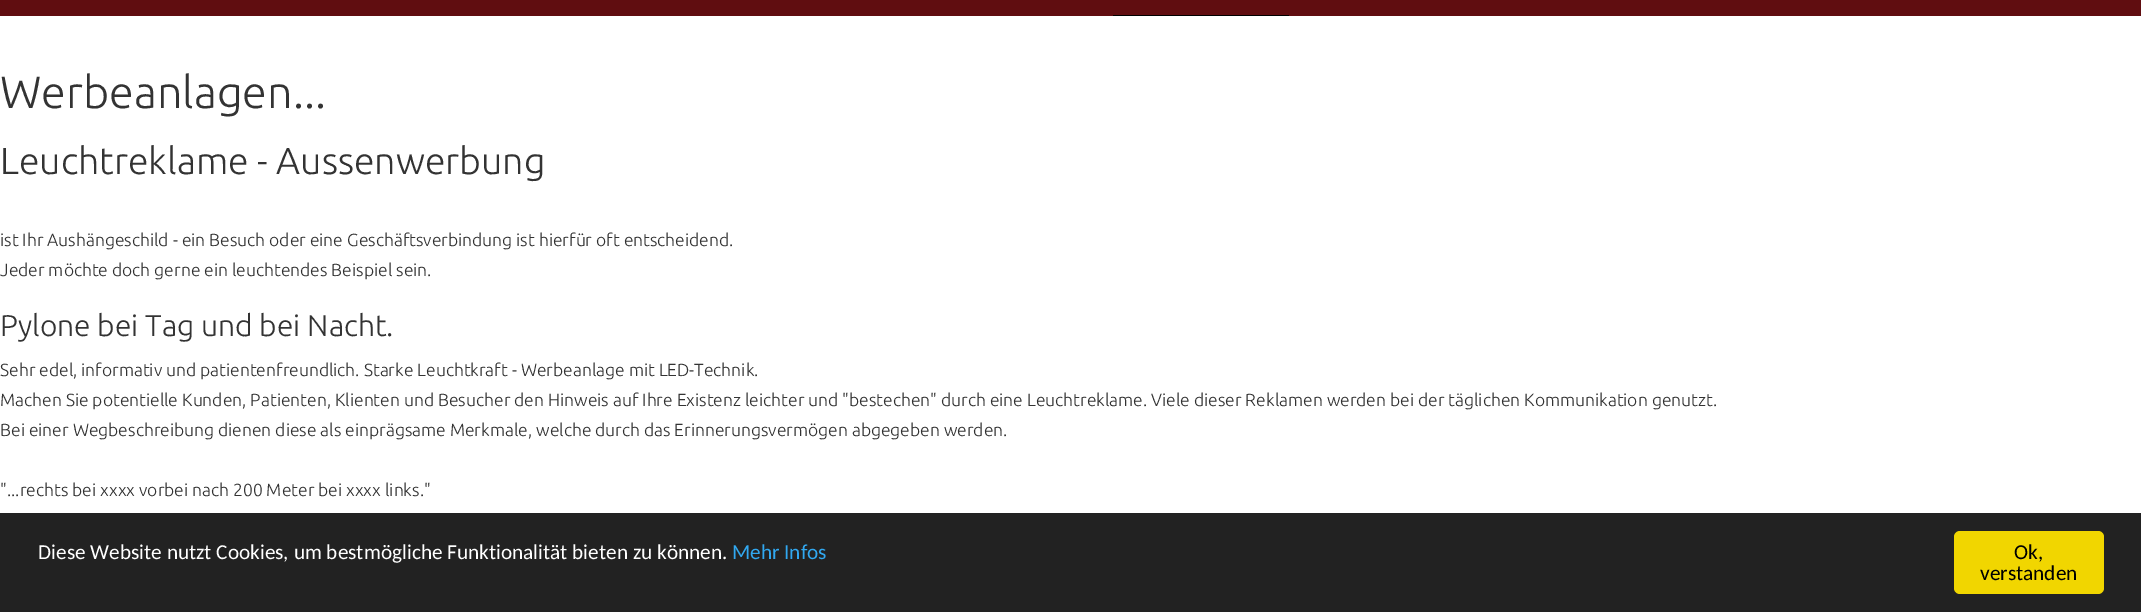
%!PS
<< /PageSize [2141 612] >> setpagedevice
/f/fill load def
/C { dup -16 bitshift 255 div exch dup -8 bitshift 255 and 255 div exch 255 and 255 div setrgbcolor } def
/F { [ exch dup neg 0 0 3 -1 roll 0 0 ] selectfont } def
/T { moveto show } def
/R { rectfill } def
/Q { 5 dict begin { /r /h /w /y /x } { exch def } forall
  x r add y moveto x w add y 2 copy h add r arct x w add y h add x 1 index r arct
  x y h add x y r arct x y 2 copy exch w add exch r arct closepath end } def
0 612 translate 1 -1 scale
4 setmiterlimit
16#FFFFFF C
0 0 2141 612 R
16#600D10 C
0 0 2141 16 R
16#000000 C
1113 15 176 1 R
/Ubuntu-Light 45 F
16#333333 C
(Werbeanlagen...) 0 108 T
/Ubuntu-Light 37.5 F
(Leuchtreklame - Aussenwerbung) 0 174 T
/Ubuntu-Light 17.5 F
(ist Ihr Aushängeschild - ein Besuch oder eine Geschäftsverbindung ist hierfür oft entscheidend.) 0 246 T
(Jeder möchte doch gerne ein leuchtendes Beispiel sein.) 0 276 T
/Ubuntu-Light 30 F
(Pylone bei Tag und bei Nacht.) 0 336 T
/Ubuntu-Light 17.5 F
(Sehr edel, informativ und patientenfreundlich. Starke Leuchtkraft - Werbeanlage mit LED-Technik.) 0 376 T
(Machen Sie potentielle Kunden, Patienten, Klienten und Besucher den Hinweis auf Ihre Existenz leichter und "bestechen" durch eine Leuchtreklame. Viele dieser Reklamen werden bei der täglichen Kommunikation genutzt.) 0 406 T
(Bei einer Wegbeschreibung dienen diese als einprägsame Merkmale, welche durch das Erinnerungsvermögen abgegeben werden.) 0 436 T
("...rechts bei xxxx vorbei nach 200 Meter bei xxxx links.") 0 496 T
16#222222 C
0 513 2141 99 R
/Carlito-Regular 21.25 F
16#FFFFFF C
(Diese Website nutzt Cookies, um bestmögliche Funktionalität bieten zu können.) 38 559 T
16#31A8F0 C
(Mehr Infos) 732 559 T
16#F1D600 C
1954 531 150 63 6 Q f
16#000000 C
(Ok,) 2014 559 T
(verstanden) 1980 580 T
showpage
